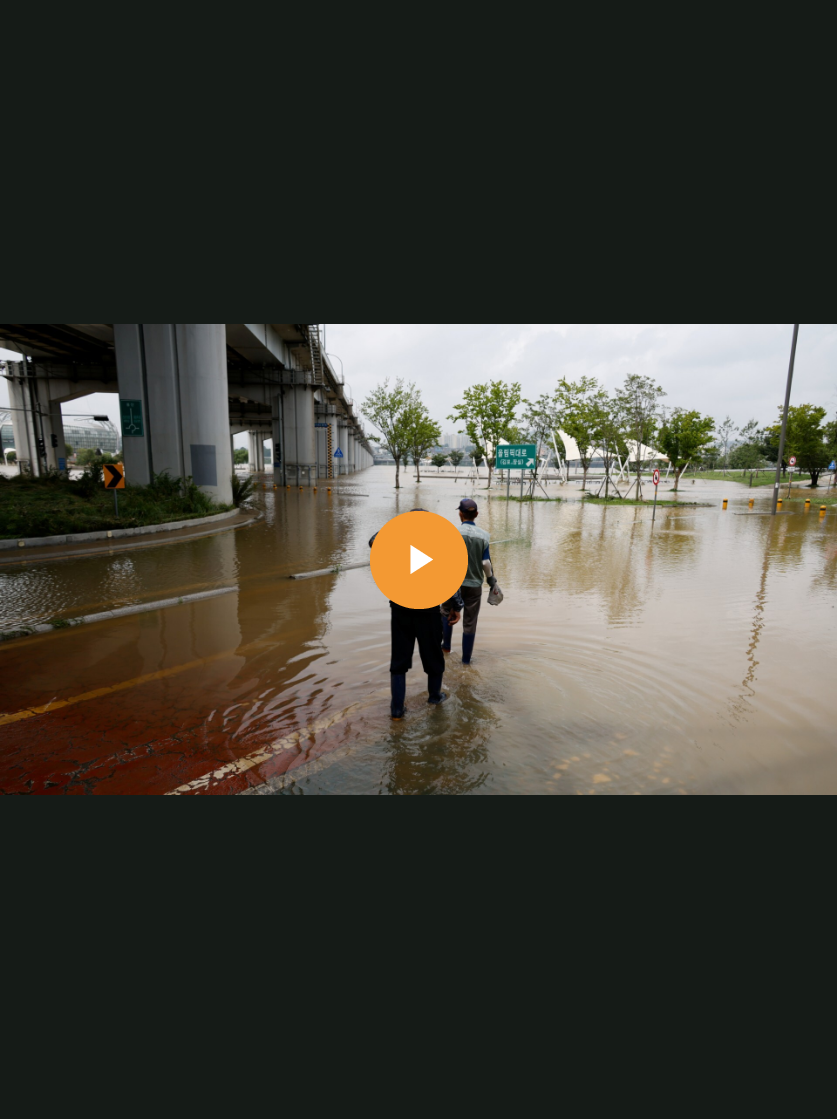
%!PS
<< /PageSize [837 1119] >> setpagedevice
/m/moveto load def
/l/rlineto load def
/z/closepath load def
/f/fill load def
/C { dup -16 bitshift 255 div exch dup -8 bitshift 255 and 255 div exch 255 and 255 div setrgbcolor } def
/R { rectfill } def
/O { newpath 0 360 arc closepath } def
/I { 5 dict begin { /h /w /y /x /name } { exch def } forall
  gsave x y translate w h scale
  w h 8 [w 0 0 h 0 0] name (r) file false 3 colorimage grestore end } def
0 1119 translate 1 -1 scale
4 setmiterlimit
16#151B17 C
0 0 837 1119 R
(1.rgb) 0 324 837 471 I
16#F39933 C
419 560 49 O f
16#FFFFFF C
410.5 545 m 0 29 l 22.5 -14.5 l z f
showpage
